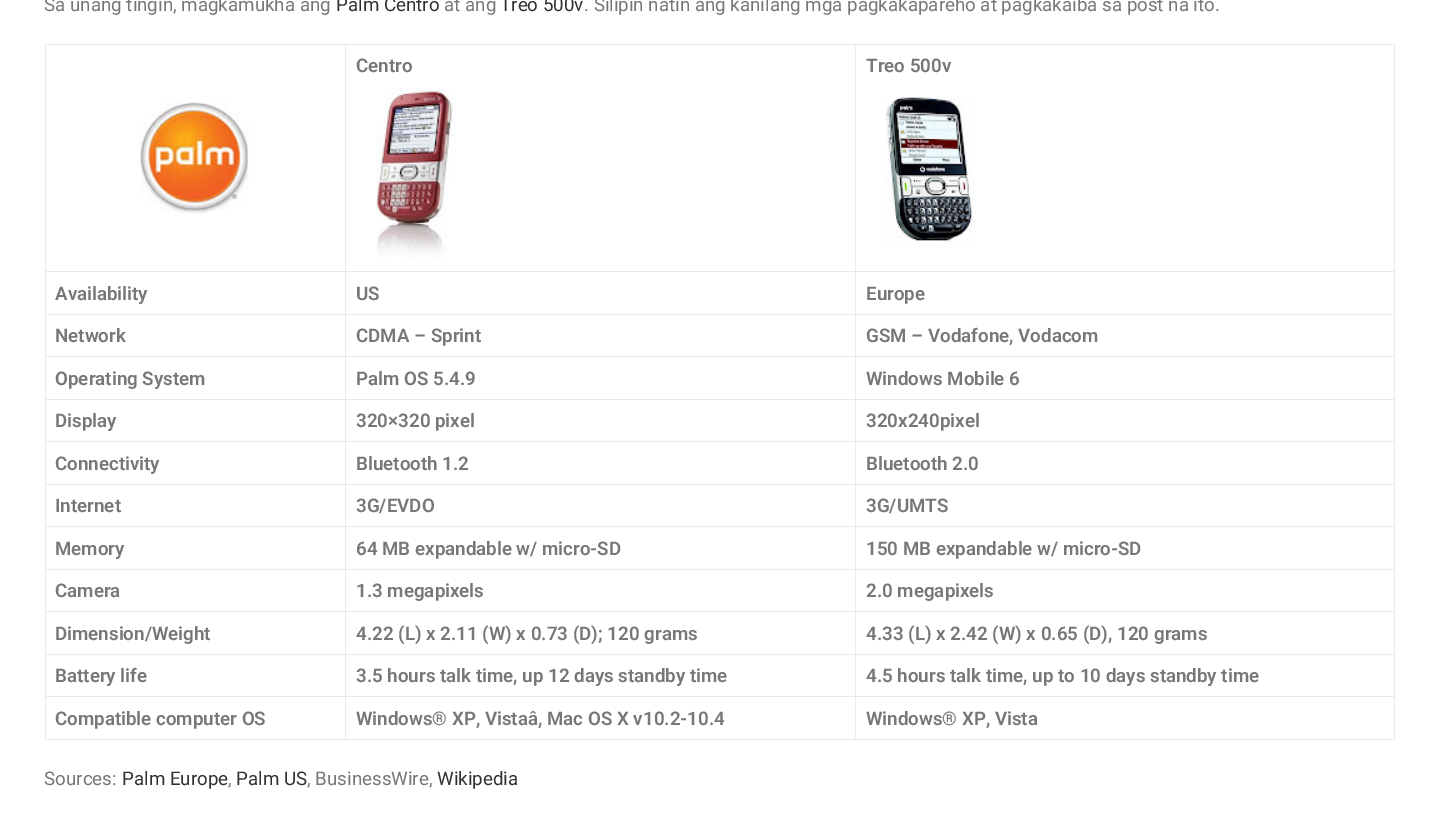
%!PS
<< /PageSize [1438 832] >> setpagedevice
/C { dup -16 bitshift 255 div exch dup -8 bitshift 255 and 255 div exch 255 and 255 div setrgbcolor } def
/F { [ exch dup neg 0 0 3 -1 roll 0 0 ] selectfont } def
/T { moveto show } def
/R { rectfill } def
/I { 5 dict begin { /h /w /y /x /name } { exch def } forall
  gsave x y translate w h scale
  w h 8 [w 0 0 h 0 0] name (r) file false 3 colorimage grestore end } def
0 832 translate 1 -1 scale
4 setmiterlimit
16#FFFFFF C
0 0 1438 832 R
/Roboto-Regular 18.75 F
16#777777 C
(Sa unang tingin, magkamukha ang) 44 11 T
16#303133 C
(Palm Centro) 336 11 T
16#777777 C
(at ang) 444 11 T
16#303133 C
(Treo 500v) 500 11 T
16#777777 C
(. Silipin natin ang kanilang mga pagkakapareho at pagkakaiba sa post na ito.) 584 11 T
16#EAEAEA C
45 44 1350 1 R
1394 44 1 696 R
45 739 1350 1 R
45 44 1 696 R
855 271 540 1 R
855 314 540 1 R
855 356 540 1 R
855 399 540 1 R
855 441 540 1 R
855 484 540 1 R
855 526 540 1 R
855 569 540 1 R
855 611 540 1 R
855 654 540 1 R
855 696 540 1 R
855 696 1 44 R
345 696 511 1 R
855 654 1 44 R
345 654 511 1 R
855 611 1 44 R
345 611 511 1 R
855 569 1 44 R
345 569 511 1 R
855 526 1 44 R
345 526 511 1 R
855 484 1 44 R
345 484 511 1 R
855 441 1 44 R
345 441 511 1 R
855 399 1 44 R
345 399 511 1 R
855 356 1 44 R
345 356 511 1 R
855 314 1 44 R
345 314 511 1 R
855 271 1 44 R
345 271 511 1 R
345 696 1 44 R
45 696 301 1 R
345 654 1 44 R
45 654 301 1 R
345 611 1 44 R
45 611 301 1 R
345 569 1 44 R
45 569 301 1 R
345 526 1 44 R
45 526 301 1 R
345 484 1 44 R
45 484 301 1 R
345 441 1 44 R
45 441 301 1 R
345 399 1 44 R
45 399 301 1 R
345 356 1 44 R
45 356 301 1 R
345 314 1 44 R
45 314 301 1 R
345 271 1 44 R
45 271 301 1 R
345 44 1 229 R
/Roboto-SemiBold 18.75 F
16#777777 C
(Centro) 356 72 T
(1.rgb) 376 88 80 170 I
16#EAEAEA C
855 44 1 229 R
16#777777 C
(Treo 500v) 866 72 T
(2.rgb) 886 97 90 151 I
(3.rgb) 140 102 110 112 I
(Availability) 55 300 T
(US) 356 300 T
(Europe) 866 300 T
(Network) 55 342 T
(CDMA – Sprint) 356 342 T
(GSM – Vodafone, Vodacom) 866 342 T
(Operating System) 55 385 T
(Palm OS 5.4.9) 356 385 T
(Windows Mobile 6) 866 385 T
(Display) 55 427 T
(320×320 pixel) 356 427 T
(320x240pixel) 866 427 T
(Connectivity) 55 470 T
(Bluetooth 1.2) 356 470 T
(Bluetooth 2.0) 866 470 T
(Internet) 55 512 T
(3G/EVDO) 356 512 T
(3G/UMTS) 866 512 T
(Memory) 55 555 T
(64 MB expandable w/ micro-SD) 356 555 T
(150 MB expandable w/ micro-SD) 866 555 T
(Camera) 55 597 T
(1.3 megapixels) 356 597 T
(2.0 megapixels) 866 597 T
(Dimension/Weight) 55 640 T
(4.22 \(L\) x 2.11 \(W\) x 0.73 \(D\); 120 grams) 356 640 T
(4.33 \(L\) x 2.42 \(W\) x 0.65 \(D\), 120 grams) 866 640 T
(Battery life) 55 682 T
(3.5 hours talk time, up 12 days standby time) 356 682 T
(4.5 hours talk time, up to 10 days standby time) 866 682 T
(Compatible computer OS) 55 725 T
(Windows® XP, Vistaâ, Mac OS X v10.2-10.4) 356 725 T
(Windows® XP, Vista) 866 725 T
/Roboto-Regular 18.75 F
(Sources:) 44 785 T
16#303133 C
(Palm Europe) 122 785 T
16#777777 C
(,) 228 785 T
16#303133 C
(Palm US) 236 785 T
16#777777 C
(, BusinessWire,) 307 785 T
16#303133 C
(Wikipedia) 437 785 T
showpage
